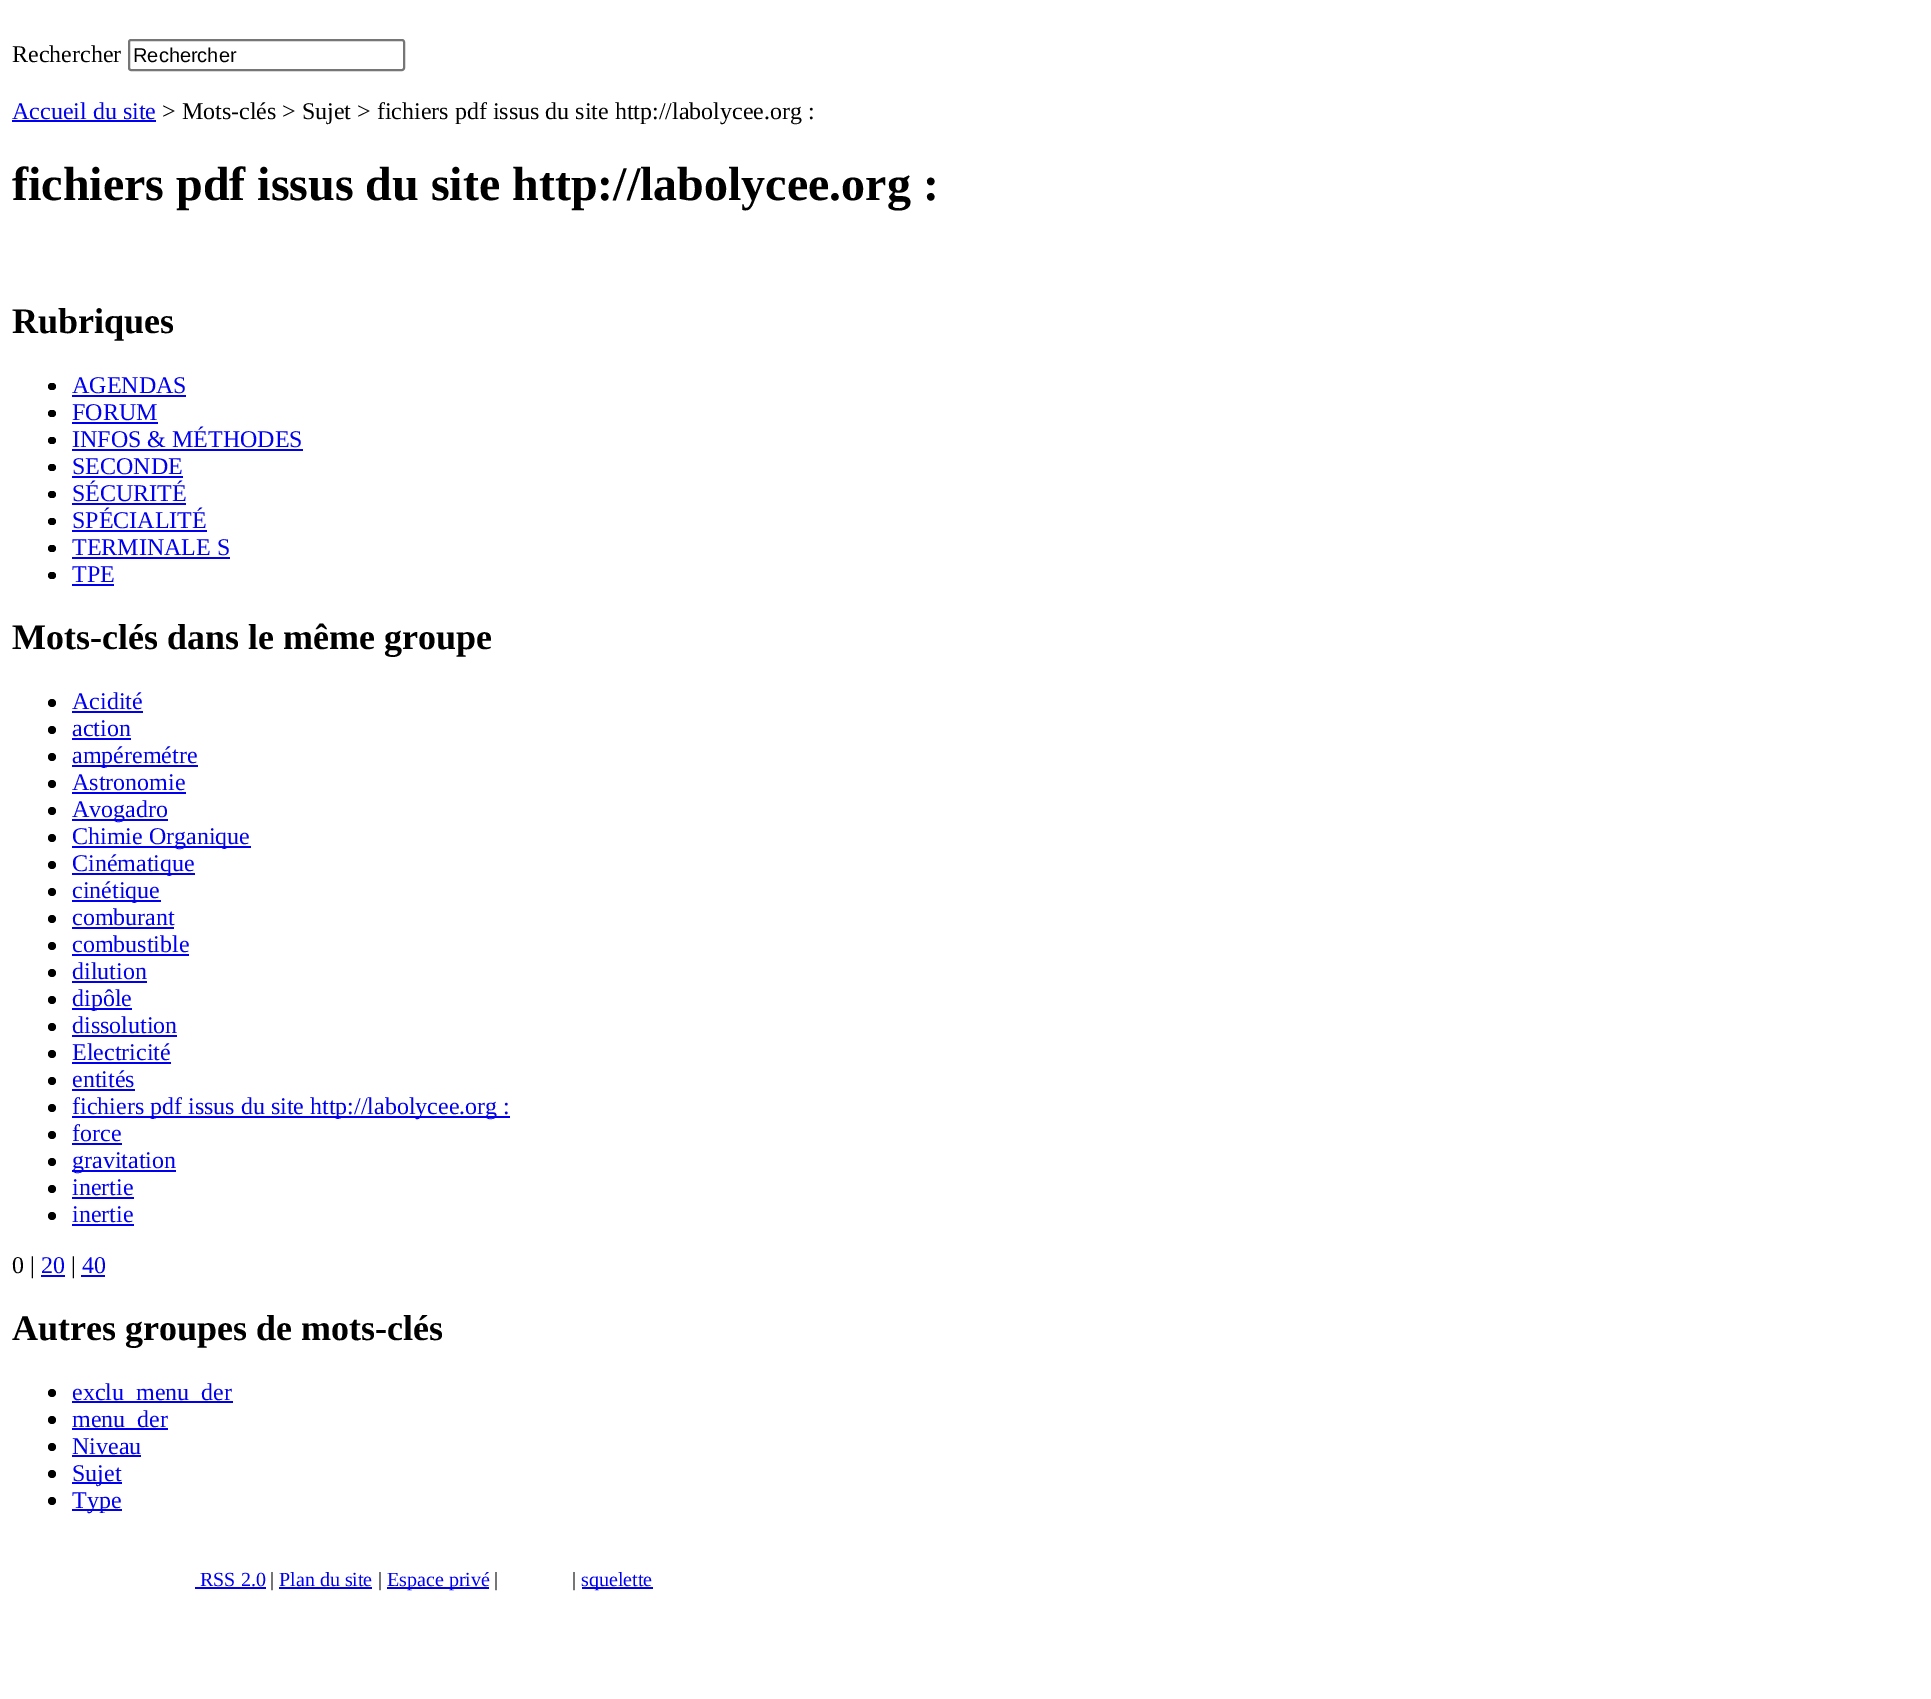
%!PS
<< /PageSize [1931 1699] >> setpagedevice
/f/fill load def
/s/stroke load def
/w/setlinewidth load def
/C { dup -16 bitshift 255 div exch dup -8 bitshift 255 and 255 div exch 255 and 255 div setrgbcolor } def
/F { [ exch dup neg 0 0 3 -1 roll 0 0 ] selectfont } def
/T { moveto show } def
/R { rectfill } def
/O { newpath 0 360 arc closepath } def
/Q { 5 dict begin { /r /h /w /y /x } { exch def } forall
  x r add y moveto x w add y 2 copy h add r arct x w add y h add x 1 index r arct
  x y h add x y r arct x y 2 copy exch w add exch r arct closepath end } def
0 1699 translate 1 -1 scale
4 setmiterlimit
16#FFFFFF C
0 0 1931 1699 R
/LiberationSerif-Regular 24 F
16#000000 C
(Rechercher) 12 62 T
16#767676 C
2 w
129 40 275 30 2 Q s
/LiberationSans-Regular 20 F
16#000000 C
(Rechercher) 133 62 T
/LiberationSerif-Regular 24 F
16#0000EE C
(Accueil du site) 12 119 T
12 120 144 2 R
16#000000 C
(> Mots-clés > Sujet > fichiers pdf issus du site http://labolycee.org :) 162 119 T
/LiberationSerif-Bold 48 F
(fichiers pdf issus du site http://labolycee.org :) 12 200 T
/LiberationSerif-Bold 36 F
(Rubriques) 12 333 T
48 383 8 7 3.5 Q f
/LiberationSerif-Regular 24 F
16#0000EE C
(AGENDAS) 72 393 T
72 395 114 2 R
16#000000 C
48 410 8 7 3.5 Q f
16#0000EE C
(FORUM) 72 420 T
72 422 86 2 R
16#000000 C
48 437 8 7 3.5 Q f
16#0000EE C
(INFOS & MÉTHODES) 72 447 T
72 449 231 2 R
16#000000 C
48 464 8 7 3.5 Q f
16#0000EE C
(SECONDE) 72 474 T
72 476 111 2 R
16#000000 C
48 491 8 7 3.5 Q f
16#0000EE C
(SÉCURITÉ) 72 501 T
72 503 114 2 R
16#000000 C
48 518 8 7 3.5 Q f
16#0000EE C
(SPÉCIALITÉ) 72 528 T
72 530 135 2 R
16#000000 C
48 545 8 7 3.5 Q f
16#0000EE C
(TERMINALE S) 72 555 T
72 557 158 2 R
16#000000 C
48 572 8 7 3.5 Q f
16#0000EE C
(TPE) 72 582 T
72 584 42 2 R
/LiberationSerif-Bold 36 F
16#000000 C
(Mots-clés dans le même groupe) 12 649 T
52 703 4 O f
/LiberationSerif-Regular 24 F
16#0000EE C
(Acidité) 72 709 T
72 711 71 2 R
16#000000 C
52 730 4 O f
16#0000EE C
(action) 72 736 T
72 738 59 2 R
16#000000 C
52 757 4 O f
16#0000EE C
72 765 126 2 R
(ampéremétre) 72 763 T
16#000000 C
52 784 4 O f
16#0000EE C
(Astronomie) 72 790 T
72 792 114 2 R
16#000000 C
52 811 4 O f
16#0000EE C
72 819 96 2 R
(Avogadro) 72 817 T
16#000000 C
52 838 4 O f
16#0000EE C
72 846 179 2 R
(Chimie Organique) 72 844 T
16#000000 C
52 865 4 O f
16#0000EE C
72 873 123 2 R
(Cinématique) 72 871 T
16#000000 C
52 892 4 O f
16#0000EE C
72 900 89 2 R
(cinétique) 72 898 T
16#000000 C
52 919 4 O f
16#0000EE C
(comburant) 72 925 T
72 927 102 2 R
16#000000 C
52 946 4 O f
16#0000EE C
(combustible) 72 952 T
72 954 117 2 R
16#000000 C
52 973 4 O f
16#0000EE C
(dilution) 72 979 T
72 981 75 2 R
16#000000 C
52 1000 4 O f
16#0000EE C
72 1008 60 2 R
(dipôle) 72 1006 T
16#000000 C
52 1027 4 O f
16#0000EE C
(dissolution) 72 1033 T
72 1035 105 2 R
16#000000 C
52 1054 4 O f
16#0000EE C
(Electricité) 72 1060 T
72 1062 99 2 R
16#000000 C
52 1081 4 O f
16#0000EE C
(entités) 72 1087 T
72 1089 63 2 R
16#000000 C
52 1108 4 O f
16#0000EE C
72 1116 438 2 R
(fichiers pdf issus du site http://labolycee.org :) 72 1114 T
16#000000 C
52 1135 4 O f
16#0000EE C
(force) 72 1141 T
72 1143 50 2 R
16#000000 C
52 1162 4 O f
16#0000EE C
72 1170 104 2 R
(gravitation) 72 1168 T
16#000000 C
52 1189 4 O f
16#0000EE C
(inertie) 72 1195 T
72 1197 62 2 R
16#000000 C
52 1216 4 O f
16#0000EE C
(inertie) 72 1222 T
72 1224 62 2 R
16#000000 C
(0 |) 12 1273 T
16#0000EE C
(20) 41 1273 T
41 1275 24 2 R
16#000000 C
(|) 71 1273 T
16#0000EE C
(40) 82 1273 T
81 1275 24 2 R
/LiberationSerif-Bold 36 F
16#000000 C
(Autres groupes de mots-clés) 12 1340 T
52 1393 4 O f
16#0000EE C
72 1401 161 2 R
/LiberationSerif-Regular 24 F
(exclu_menu_der) 72 1400 T
16#000000 C
52 1420 4 O f
16#0000EE C
72 1428 96 2 R
(menu_der) 72 1427 T
16#000000 C
52 1447 4 O f
16#0000EE C
(Niveau) 72 1454 T
72 1455 69 2 R
16#000000 C
52 1474 4 O f
16#0000EE C
72 1482 50 2 R
(Sujet) 72 1481 T
16#000000 C
52 1501 4 O f
16#0000EE C
72 1509 50 2 R
(Type) 72 1508 T
/LiberationSerif-Regular 20 F
(RSS 2.0) 200 1586 T
195 1587 71 2 R
16#000000 C
(|) 270 1586 T
16#0000EE C
(Plan du site) 279 1586 T
279 1587 93 2 R
16#000000 C
(|) 378 1586 T
16#0000EE C
387 1587 102 2 R
(Espace privé) 387 1586 T
16#000000 C
(|) 494 1586 T
(|) 572 1586 T
16#0000EE C
582 1587 71 2 R
(squelette) 581 1586 T
showpage
